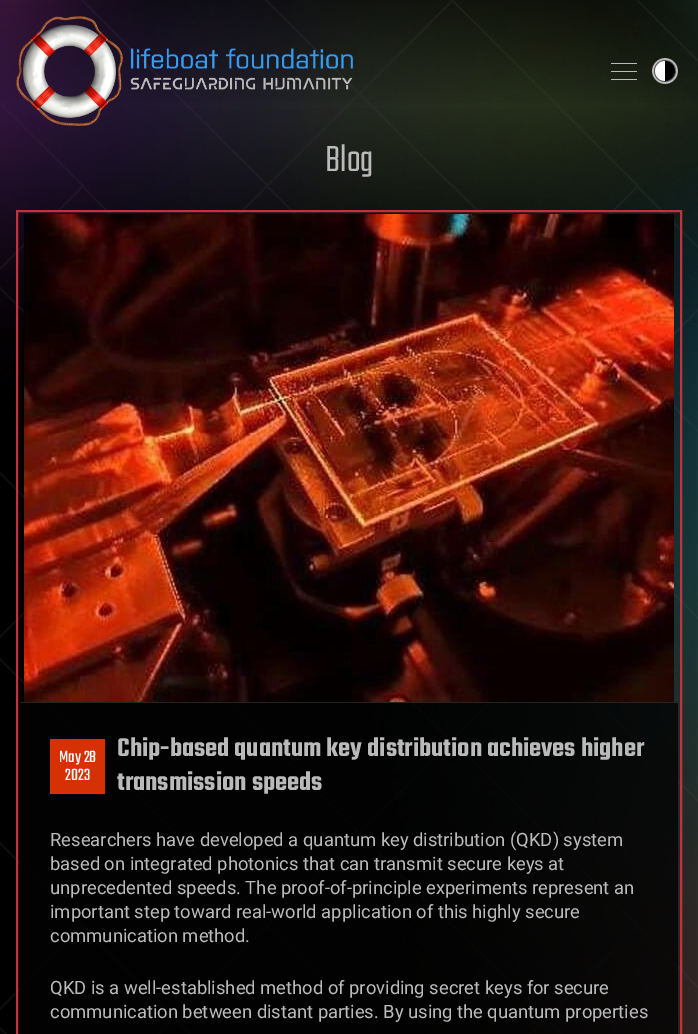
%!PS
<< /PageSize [698 1034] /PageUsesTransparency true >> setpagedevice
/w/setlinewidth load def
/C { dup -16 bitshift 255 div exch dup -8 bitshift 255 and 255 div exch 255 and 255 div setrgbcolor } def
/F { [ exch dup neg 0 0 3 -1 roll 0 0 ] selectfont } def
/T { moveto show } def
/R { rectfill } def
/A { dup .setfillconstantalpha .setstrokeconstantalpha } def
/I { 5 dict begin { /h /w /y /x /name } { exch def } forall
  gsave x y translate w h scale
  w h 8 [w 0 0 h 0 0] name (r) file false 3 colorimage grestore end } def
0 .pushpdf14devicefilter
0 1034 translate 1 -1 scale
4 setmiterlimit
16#000000 C
0 0 698 1034 R
(1.rgb) 0 0 698 1034 I
(4.rgb) 0 0 698 328 I
(2.rgb) 16 16 337 110 I
16#BABABA C
611 71 26 1 R
611 63 26 1 R
611 79 26 1 R
(3.rgb) 652 58 26 26 I
/Teko-Light 40 F
(Blog) 325 171 T
16#C4303B C
2 w
17 211 664 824 rectstroke
16#242424 C
20 702 658 1 R
(5.rgb) 24 214 650 488 I
0.8 A
16#020202 C
20 703 658 331 R
1 A
16#D53105 C
50 739 55 55 R
/Teko-Regular 18 F
16#FFFFFF C
(May 28) 59 762 T
(2023) 65 780 T
/Teko-SemiBold 28 F
16#BABABA C
(Chip-based quantum key distribution achieves higher) 117 756 T
(transmission speeds) 117 790 T
/Roboto-Regular 18.4 F
(Researchers have developed a quantum key distribution \(QKD\) system) 50 846 T
(based on integrated photonics that can transmit secure keys at) 50 870 T
(unprecedented speeds. The proof-of-principle experiments represent an) 50 894 T
(important step toward real-world application of this highly secure) 50 918 T
(communication method.) 50 942 T
(QKD is a well-established method of providing secret keys for secure) 50 994 T
(communication between distant parties. By using the quantum properties) 50 1018 T
.poppdf14devicefilter showpage
